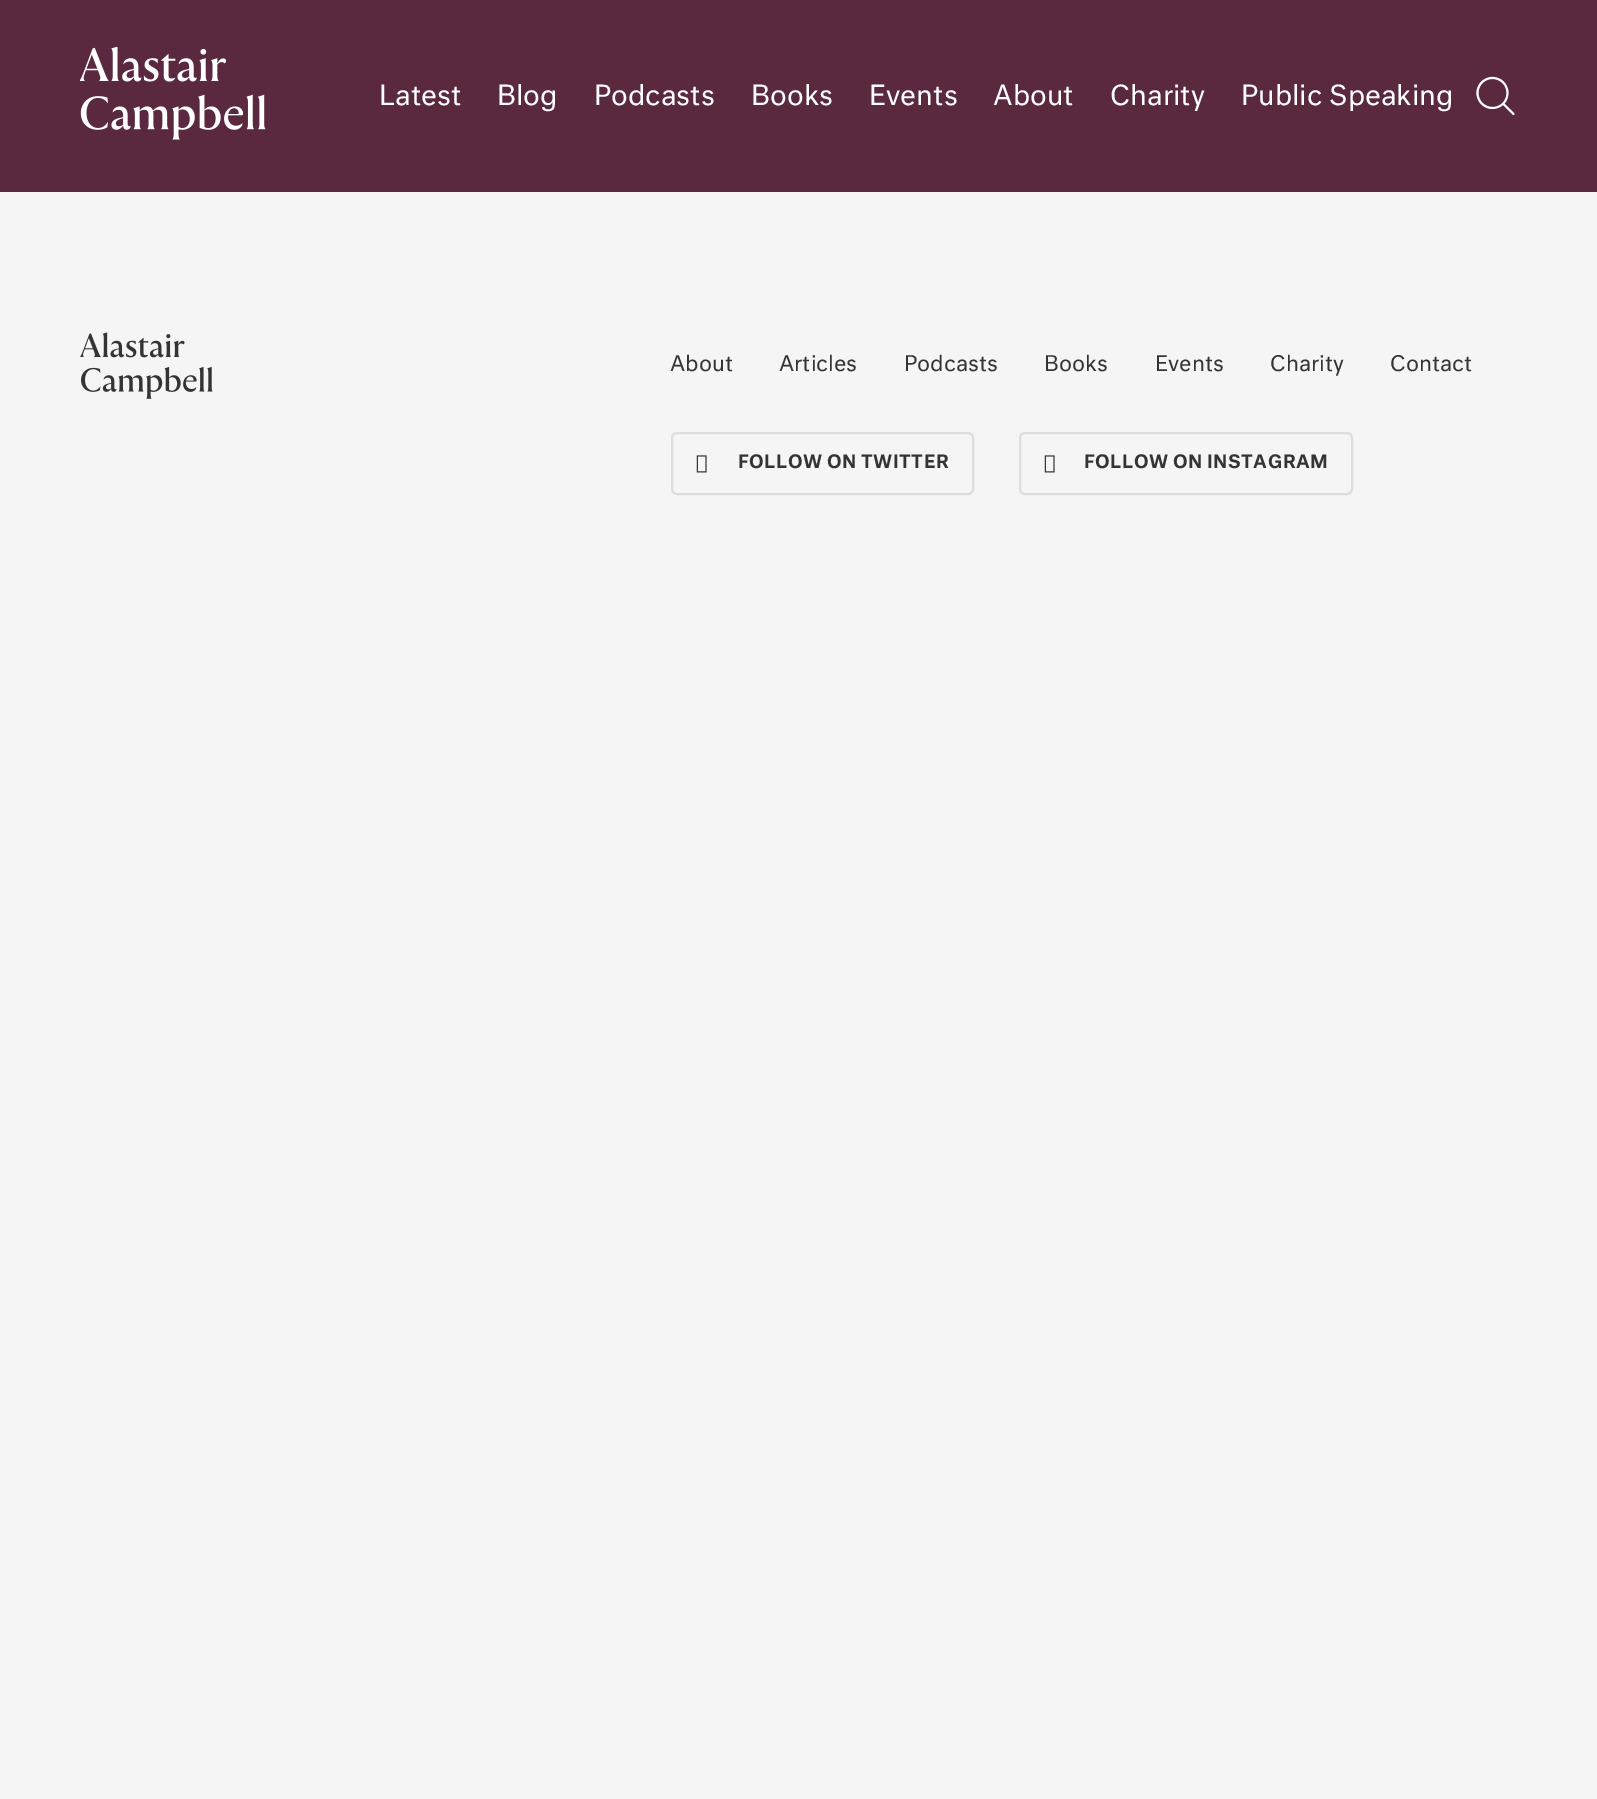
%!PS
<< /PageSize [1597 1799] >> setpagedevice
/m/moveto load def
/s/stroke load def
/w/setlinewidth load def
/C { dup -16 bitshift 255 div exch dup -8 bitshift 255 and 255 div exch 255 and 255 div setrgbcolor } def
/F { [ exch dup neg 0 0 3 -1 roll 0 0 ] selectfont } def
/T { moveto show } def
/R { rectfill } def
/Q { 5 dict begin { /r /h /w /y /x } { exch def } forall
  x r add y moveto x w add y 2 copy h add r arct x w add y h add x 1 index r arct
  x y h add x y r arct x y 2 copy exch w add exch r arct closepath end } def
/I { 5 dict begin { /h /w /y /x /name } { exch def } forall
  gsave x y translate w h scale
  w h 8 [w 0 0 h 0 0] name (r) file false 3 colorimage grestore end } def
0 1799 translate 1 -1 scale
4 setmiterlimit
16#F5F5F5 C
0 0 1597 1799 R
16#5A293F C
0 0 1597 192 R
(1.rgb) 80 47 186 93 I
/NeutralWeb-Regular 27 F
16#FFFFFF C
(Latest) 379 105 T
(Blog) 497 105 T
(Podcasts) 594 105 T
(Books) 751 105 T
(Events) 869 105 T
(About) 993 105 T
(Charity) 1110 105 T
(Public Speaking) 1241 105 T
(2.rgb) 1476 76 39 40 I
(3.rgb) 80 332 133 67 I
/NeutralWeb-Regular 21 F
16#343434 C
(About) 670 371 T
(Articles) 779 371 T
(Podcasts) 904 371 T
(Books) 1044 371 T
(Events) 1155 371 T
(Charity) 1270 371 T
(Contact) 1390 371 T
16#DDDDDD C
2 w
672 433 301 61 5 Q s
(4.rgb) 696 455 11 18 I
/NeutralWeb-Medium 18 F
16#343434 C
738 468 m .5 0 (FOLLOW ON TWITTER) ashow
16#DDDDDD C
1020 433 332 61 5 Q s
(4.rgb) 1044 455 11 18 I
16#343434 C
1084 468 m .5 0 (FOLLOW ON INSTAGRAM) ashow
showpage
